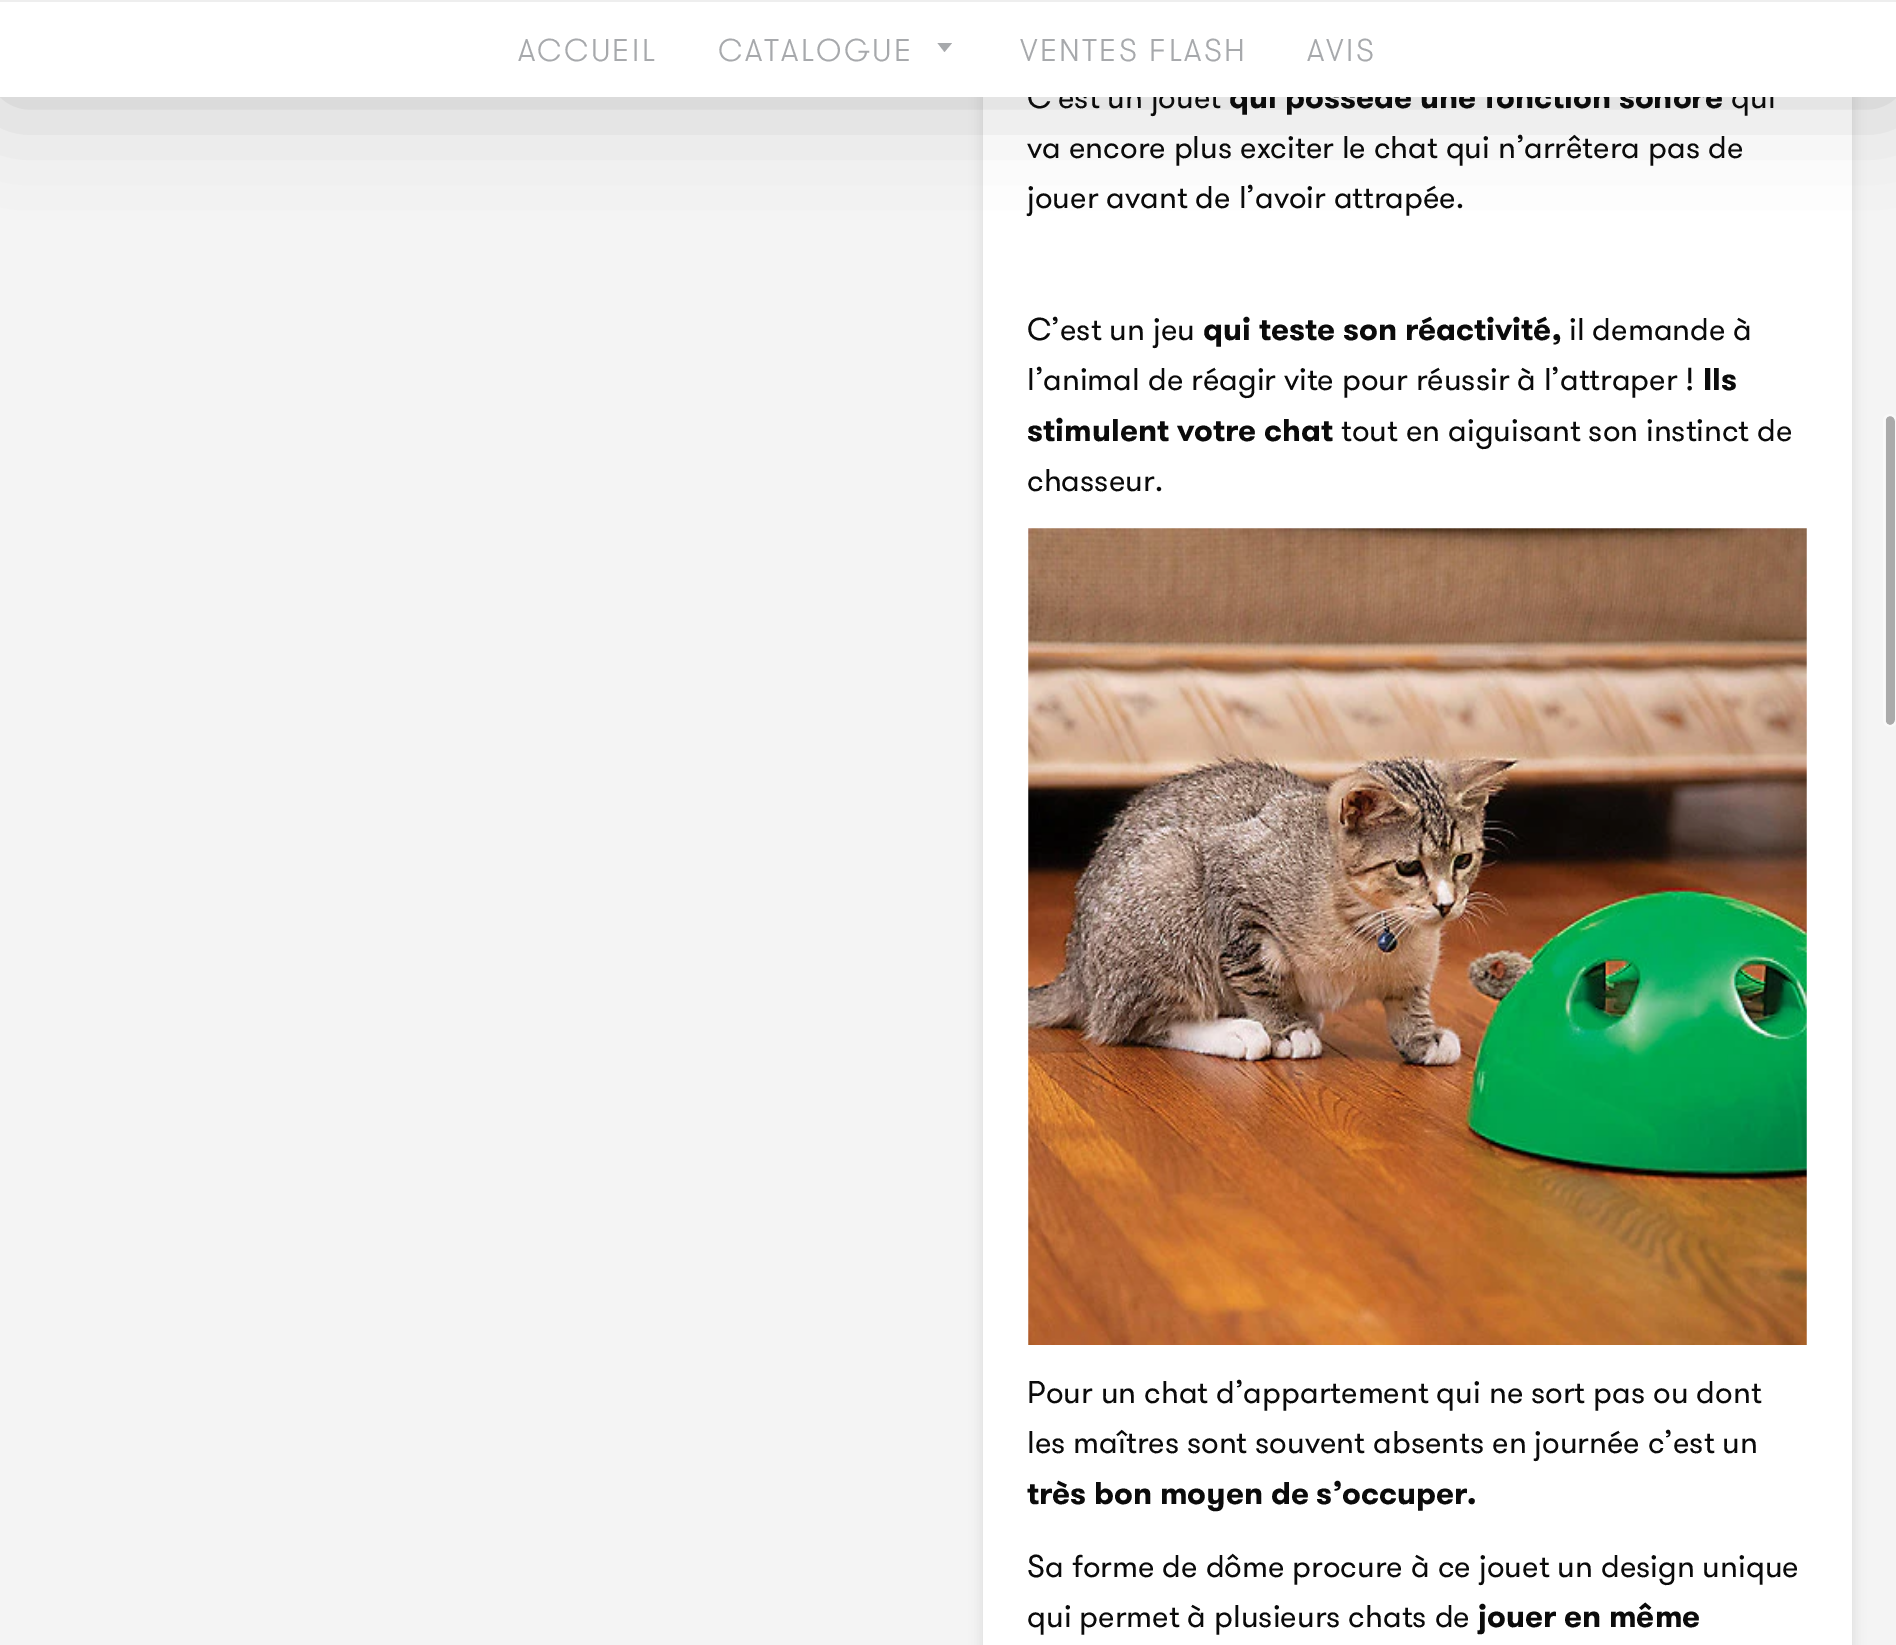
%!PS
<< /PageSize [1896 1645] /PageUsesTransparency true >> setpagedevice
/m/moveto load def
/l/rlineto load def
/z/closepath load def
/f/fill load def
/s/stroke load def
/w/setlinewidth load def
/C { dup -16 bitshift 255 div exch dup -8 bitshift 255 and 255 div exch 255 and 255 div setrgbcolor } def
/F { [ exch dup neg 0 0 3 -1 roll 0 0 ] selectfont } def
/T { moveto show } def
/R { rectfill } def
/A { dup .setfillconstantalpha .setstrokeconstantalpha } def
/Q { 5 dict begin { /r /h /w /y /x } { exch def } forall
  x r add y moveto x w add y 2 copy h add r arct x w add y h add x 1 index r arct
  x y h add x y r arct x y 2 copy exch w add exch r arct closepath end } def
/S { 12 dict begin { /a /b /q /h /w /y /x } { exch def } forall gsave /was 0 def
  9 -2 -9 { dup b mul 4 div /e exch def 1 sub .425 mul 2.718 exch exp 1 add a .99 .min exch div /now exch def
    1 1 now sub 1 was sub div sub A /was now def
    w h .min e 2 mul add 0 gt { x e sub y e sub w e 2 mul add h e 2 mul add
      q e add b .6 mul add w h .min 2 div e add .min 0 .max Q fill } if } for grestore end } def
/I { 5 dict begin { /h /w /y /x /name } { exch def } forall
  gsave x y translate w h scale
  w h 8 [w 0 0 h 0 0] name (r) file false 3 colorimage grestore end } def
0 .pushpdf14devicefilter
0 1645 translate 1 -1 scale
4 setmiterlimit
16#F4F4F4 C
0 0 1896 1645 R
16#000000 C
981 -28 873 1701 11 5.5 .08 S
16#FFFFFF C
983 97 869 1548 R
16#000000 C
0 0 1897 97 0 50.5 .2 S
/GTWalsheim-Regular 31.5 F
16#0B0B0B C
(C'est un jouet) 1027 108 T
/GTWalsheim-Bold 31.5 F
(qui possède une fonction sonore) 1229 108 T
/GTWalsheim-Regular 31.5 F
(qui) 1731 108 T
16#FFFFFF C
0 2 1896 95 R
16#EEEEEE C
0 0 1896 2 R
/GTWalsheim-Light 31.5 F
16#A7A9AC C
518 61 m 2.25 0 (ACCUEIL) ashow
718 61 m 2.25 0 (CATALOGUE) ashow
937.5 43 m 7 9 l 7.5 -9 l z f
1020 61 m 2.25 0 (VENTES FLASH) ashow
1307 61 m 2.25 0 (AVIS) ashow
/GTWalsheim-Regular 31.5 F
16#0B0B0B C
(va encore plus exciter le chat qui n’arrêtera pas de) 1027 158 T
(jouer avant de l’avoir attrapée.) 1027 208 T
(C’est un jeu) 1027 340 T
/GTWalsheim-Bold 31.5 F
(qui teste son réactivité,) 1203 340 T
/GTWalsheim-Regular 31.5 F
(il demande à) 1569 340 T
(l’animal de réagir vite pour réussir à l’attraper !) 1027 390 T
/GTWalsheim-Bold 31.5 F
(Ils) 1703 390 T
(stimulent votre chat) 1027 441 T
/GTWalsheim-Regular 31.5 F
(tout en aiguisant son instinct de) 1341 441 T
(chasseur.) 1027 491 T
(1.rgb) 1028 528 779 817 I
(Pour un chat d’appartement qui ne sort pas ou dont) 1027 1403 T
(les maîtres sont souvent absents en journée c’est un) 1027 1453 T
/GTWalsheim-Bold 31.5 F
(très bon moyen de s’occuper.) 1027 1504 T
/GTWalsheim-Regular 31.5 F
(Sa forme de dôme procure à ce jouet un design unique) 1027 1577 T
(qui permet à plusieurs chats de) 1027 1627 T
/GTWalsheim-Bold 31.5 F
(jouer en même) 1478 1627 T
16#AAAAAA C
1886 416 9 309 4.5 Q f
16#F9F9F9 C
2 w
1884 415 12 311 6 Q s
.poppdf14devicefilter showpage
